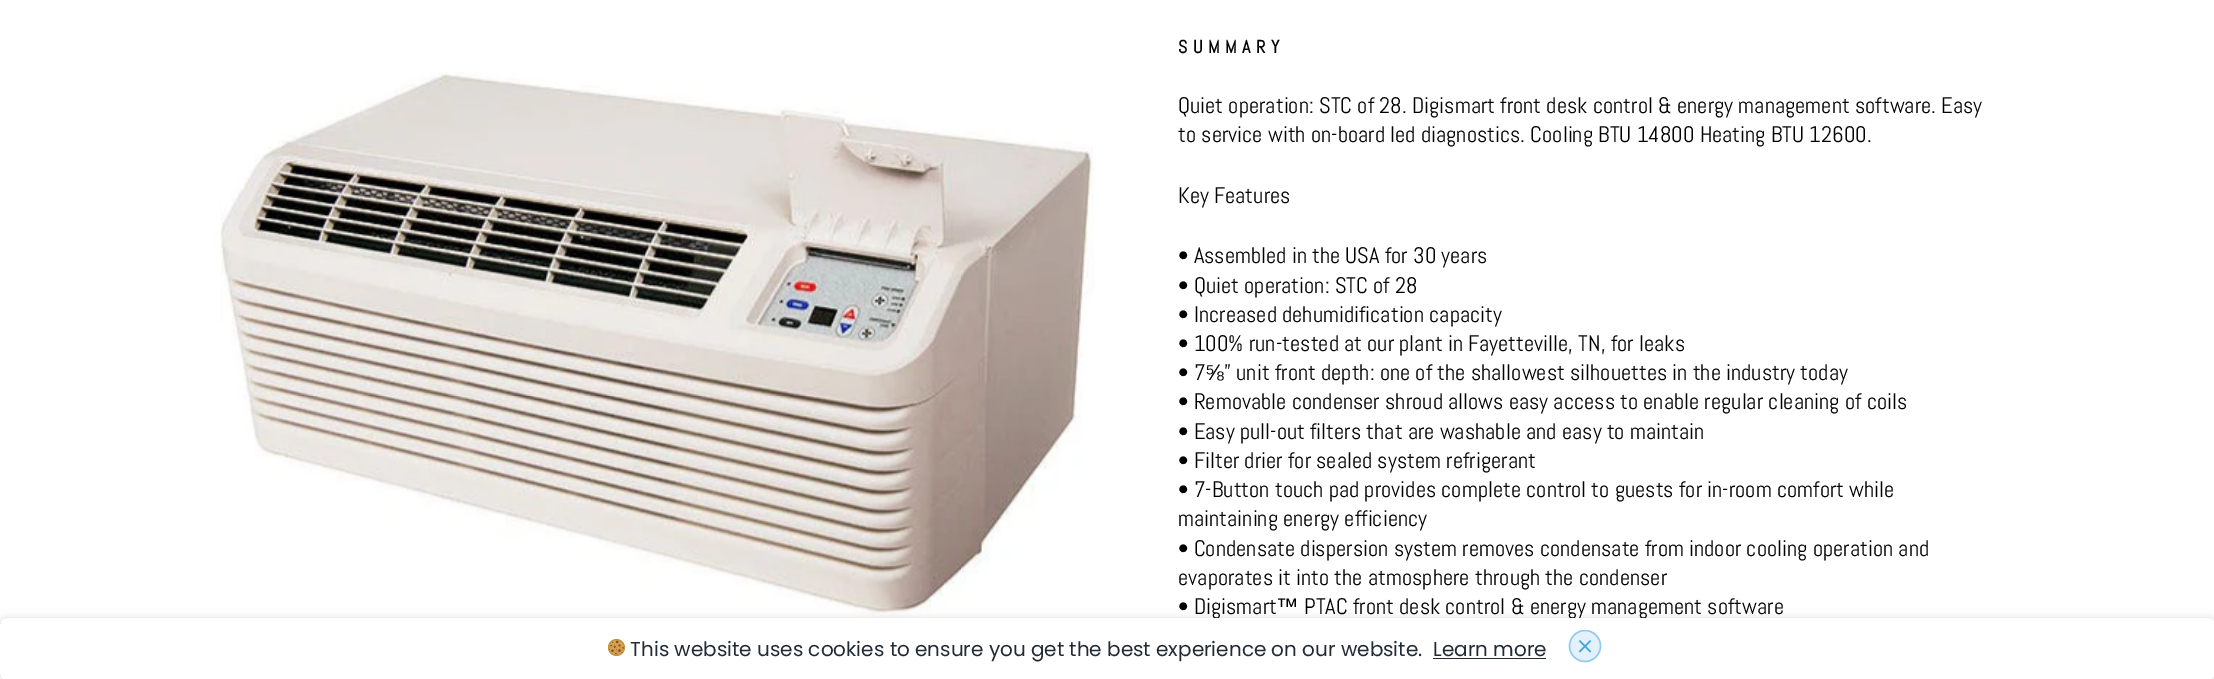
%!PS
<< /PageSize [2214 679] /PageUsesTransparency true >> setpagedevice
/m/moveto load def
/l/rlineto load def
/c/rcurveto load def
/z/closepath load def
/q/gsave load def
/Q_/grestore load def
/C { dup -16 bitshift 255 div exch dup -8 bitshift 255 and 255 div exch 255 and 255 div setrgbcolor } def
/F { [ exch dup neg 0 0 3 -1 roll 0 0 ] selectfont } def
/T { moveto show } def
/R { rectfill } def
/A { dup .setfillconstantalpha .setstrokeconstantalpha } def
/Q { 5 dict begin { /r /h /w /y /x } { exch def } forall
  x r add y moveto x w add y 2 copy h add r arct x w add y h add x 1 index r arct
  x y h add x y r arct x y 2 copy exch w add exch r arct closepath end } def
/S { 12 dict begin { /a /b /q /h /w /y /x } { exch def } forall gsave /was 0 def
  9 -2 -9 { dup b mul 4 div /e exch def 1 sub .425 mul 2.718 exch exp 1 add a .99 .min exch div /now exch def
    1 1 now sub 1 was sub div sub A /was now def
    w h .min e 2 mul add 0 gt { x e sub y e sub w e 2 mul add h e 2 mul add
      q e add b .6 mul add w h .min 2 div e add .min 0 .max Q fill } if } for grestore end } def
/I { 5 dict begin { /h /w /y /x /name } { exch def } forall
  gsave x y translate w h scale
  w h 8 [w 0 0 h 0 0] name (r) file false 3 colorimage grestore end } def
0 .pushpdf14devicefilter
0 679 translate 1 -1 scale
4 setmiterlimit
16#FFFFFF C
0 0 2214 679 R
(1.rgb) 220 71 874 547 I
/Abel-Bold 18 F
16#000000 C
1178 53 m 5.5 0 (SUMMARY) ashow
/Abel-Regular 22.5 F
(Quiet operation: STC of 28. Digismart front desk control & energy management software. Easy) 1178 113 T
(to service with on-board led diagnostics. Cooling BTU 14800 Heating BTU 12600.) 1178 142 T
(Key Features) 1178 203 T
(• Assembled in the USA for 30 years) 1178 263 T
(• Quiet operation: STC of 28) 1178 293 T
(• Increased dehumidification capacity) 1178 322 T
(• 100% run-tested at our plant in Fayetteville, TN, for leaks) 1178 351 T
(• 7) 1178 380 T
/LiberationSans-Regular 22.5 F
(⅝) 1205 380 T
/Abel-Regular 22.5 F
(” unit front depth: one of the shallowest silhouettes in the industry today) 1224 380 T
(• Removable condenser shroud allows easy access to enable regular cleaning of coils) 1178 409 T
(• Easy pull-out filters that are washable and easy to maintain) 1178 439 T
(• Filter drier for sealed system refrigerant) 1178 468 T
(• 7-Button touch pad provides complete control to guests for in-room comfort while) 1178 497 T
(maintaining energy efficiency) 1178 526 T
(• Condensate dispersion system removes condensate from indoor cooling operation and) 1178 556 T
(evaporates it into the atmosphere through the condenser) 1178 585 T
(• Digismart) 1178 614 T
/LiberationSans-Regular 22.5 F
(™) 1276 614 T
/Abel-Regular 22.5 F
(PTAC front desk control & energy management software) 1304 614 T
16#FFFFFF C
1213 618 432 1 R
q
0 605 m 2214 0 l 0 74 l -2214 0 l z 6 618 m 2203 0 l 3.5 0 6 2.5 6 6 c 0 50 l 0 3.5 -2.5 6 -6 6 c -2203 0 l -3.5 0 -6 -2.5 -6 -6 c 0 -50 l 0 -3.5 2.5 -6 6 -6 c z eoclip newpath
16#000000 C
0 618 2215 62 6 4 .12 S
Q_
(2.rgb) 608 639 18 17 I
/Poppins-Regular 20 F
16#212B36 C
(This website uses cookies to ensure you get the best experience on our website.) 630 656 T
(Learn more) 1433 656 T
1433 658 113 1 R
(3.rgb) 1568 630 34 33 I
.poppdf14devicefilter showpage
